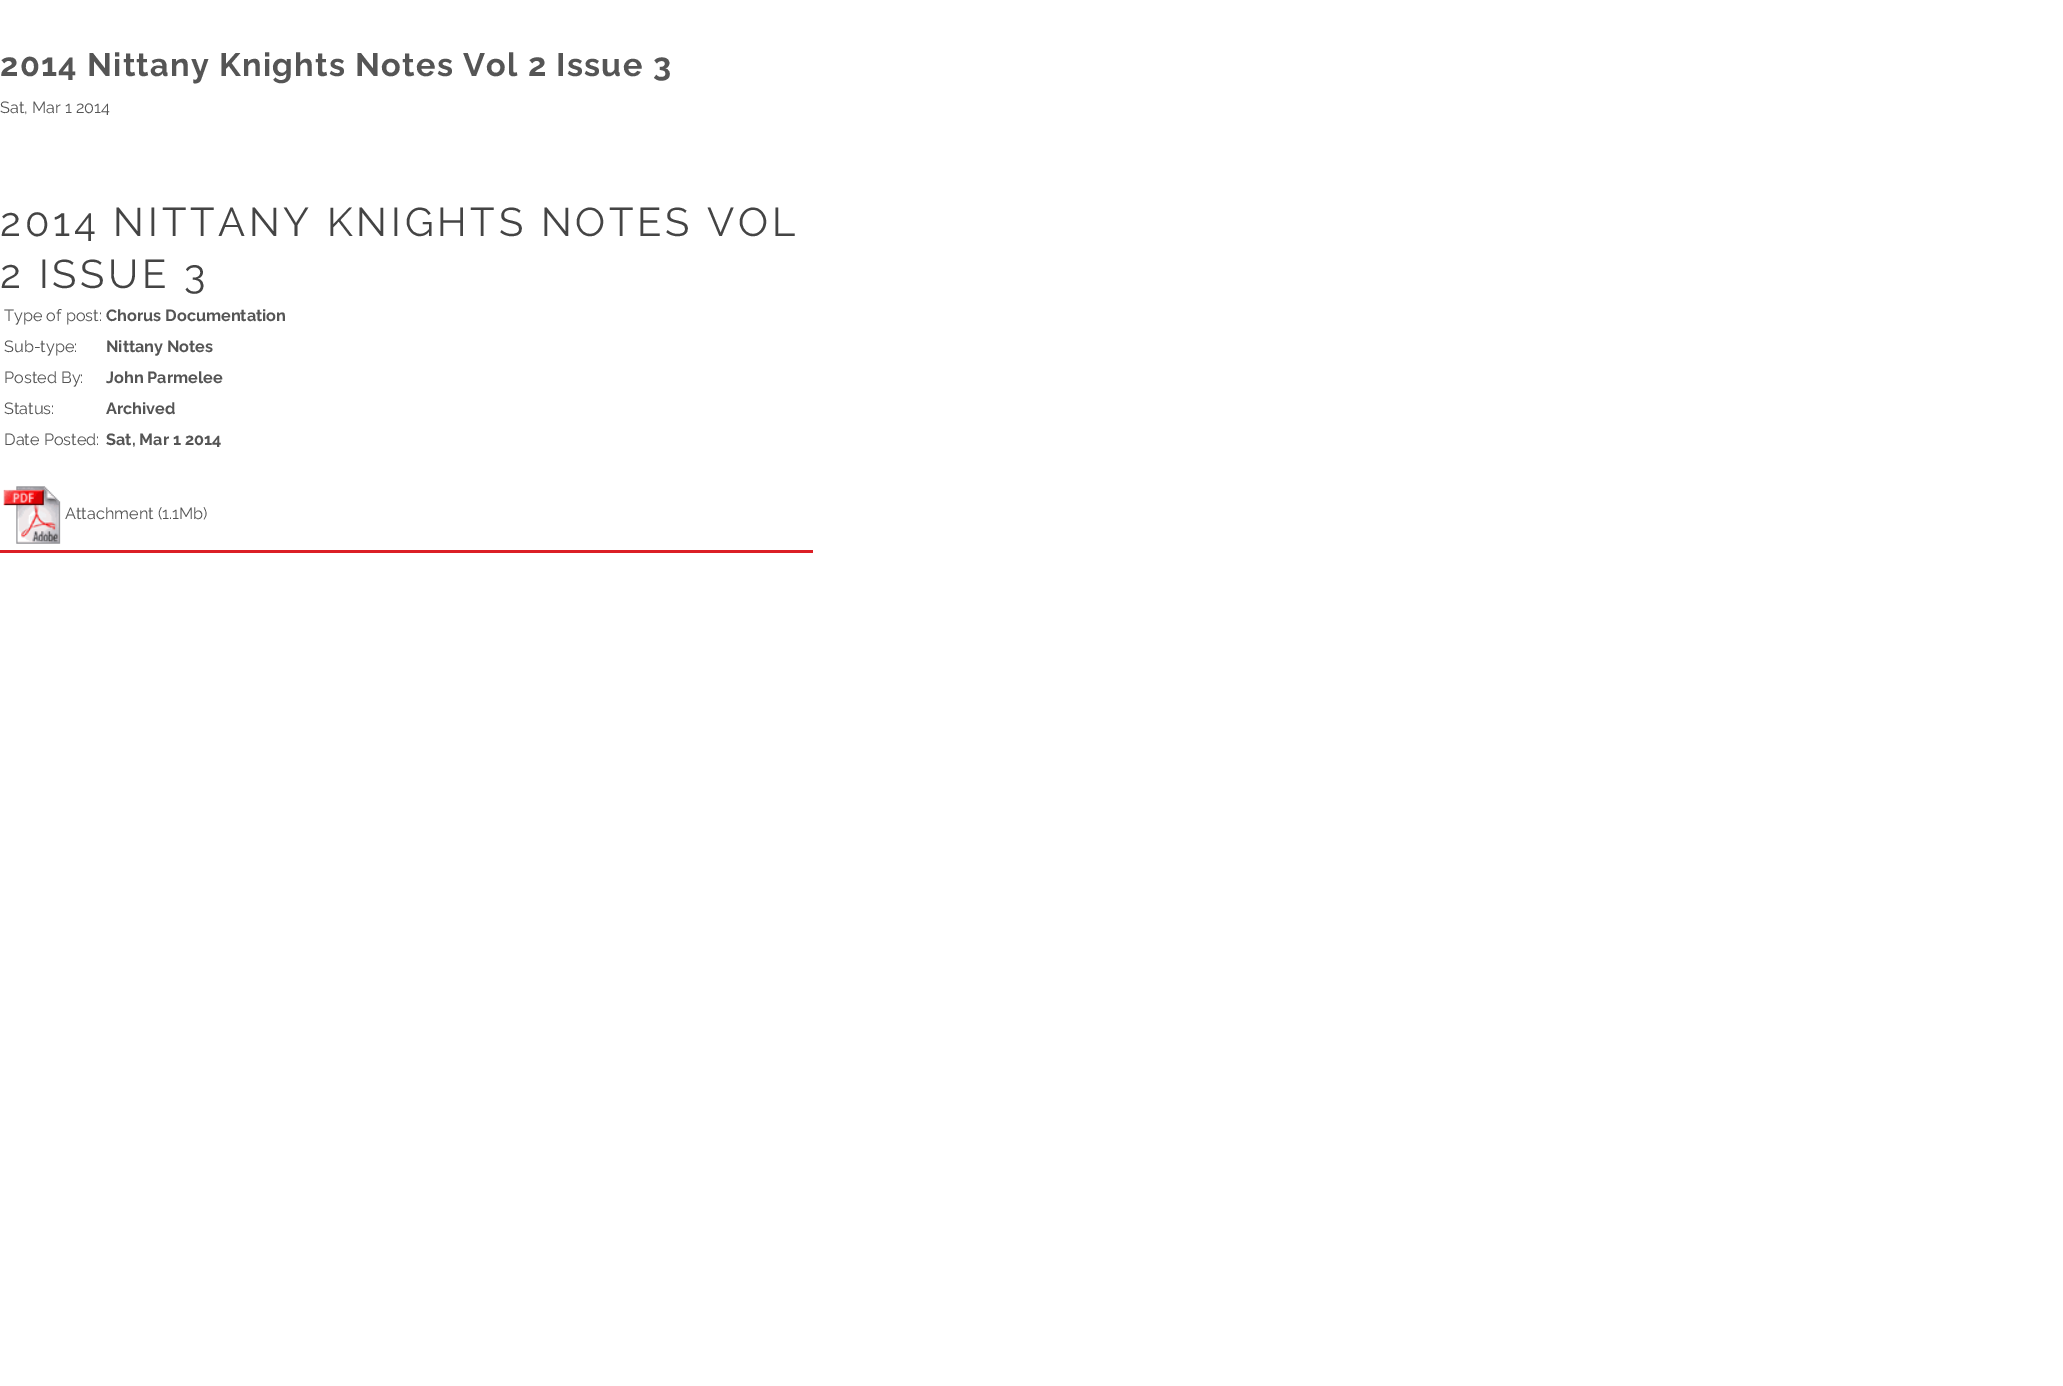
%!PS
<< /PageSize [2063 1386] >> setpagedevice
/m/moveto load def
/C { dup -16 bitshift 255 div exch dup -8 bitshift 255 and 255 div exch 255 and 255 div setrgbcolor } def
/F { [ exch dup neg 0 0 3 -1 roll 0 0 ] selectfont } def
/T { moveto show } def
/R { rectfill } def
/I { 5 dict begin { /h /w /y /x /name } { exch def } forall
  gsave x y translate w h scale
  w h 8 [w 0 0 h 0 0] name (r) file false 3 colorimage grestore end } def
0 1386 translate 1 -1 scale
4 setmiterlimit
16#FFFFFF C
0 0 2063 1386 R
/Raleway-Bold 32.5 F
16#555555 C
0 76 m 1.25 0 (2014 Nittany Knights Notes Vol 2 Issue 3) ashow
/Raleway-Regular 16.25 F
(Sat, Mar 1 2014) 0 113 T
/Raleway-Regular 40 F
16#444444 C
0 236 m 3.75 0 (2014 NITTANY KNIGHTS NOTES VOL) ashow
0 288 m 3.75 0 (2 ISSUE 3) ashow
/Raleway-Regular 16.25 F
16#555555 C
(Type of post:) 4 321 T
/Raleway-Bold 16.25 F
(Chorus Documentation) 106 321 T
/Raleway-Regular 16.25 F
(Sub-type:) 4 352 T
/Raleway-Bold 16.25 F
(Nittany Notes) 106 352 T
/Raleway-Regular 16.25 F
(Posted By:) 4 383 T
/Raleway-Bold 16.25 F
(John Parmelee) 106 383 T
/Raleway-Regular 16.25 F
(Status:) 4 414 T
/Raleway-Bold 16.25 F
(Archived) 106 414 T
/Raleway-Regular 16.25 F
(Date Posted:) 4 445 T
/Raleway-Bold 16.25 F
(Sat, Mar 1 2014) 106 445 T
(1.rgb) 3 486 58 58 I
/Raleway-Regular 16.25 F
(Attachment \(1.1Mb\)) 65 519 T
16#DB1F26 C
0 550 813 3 R
showpage
